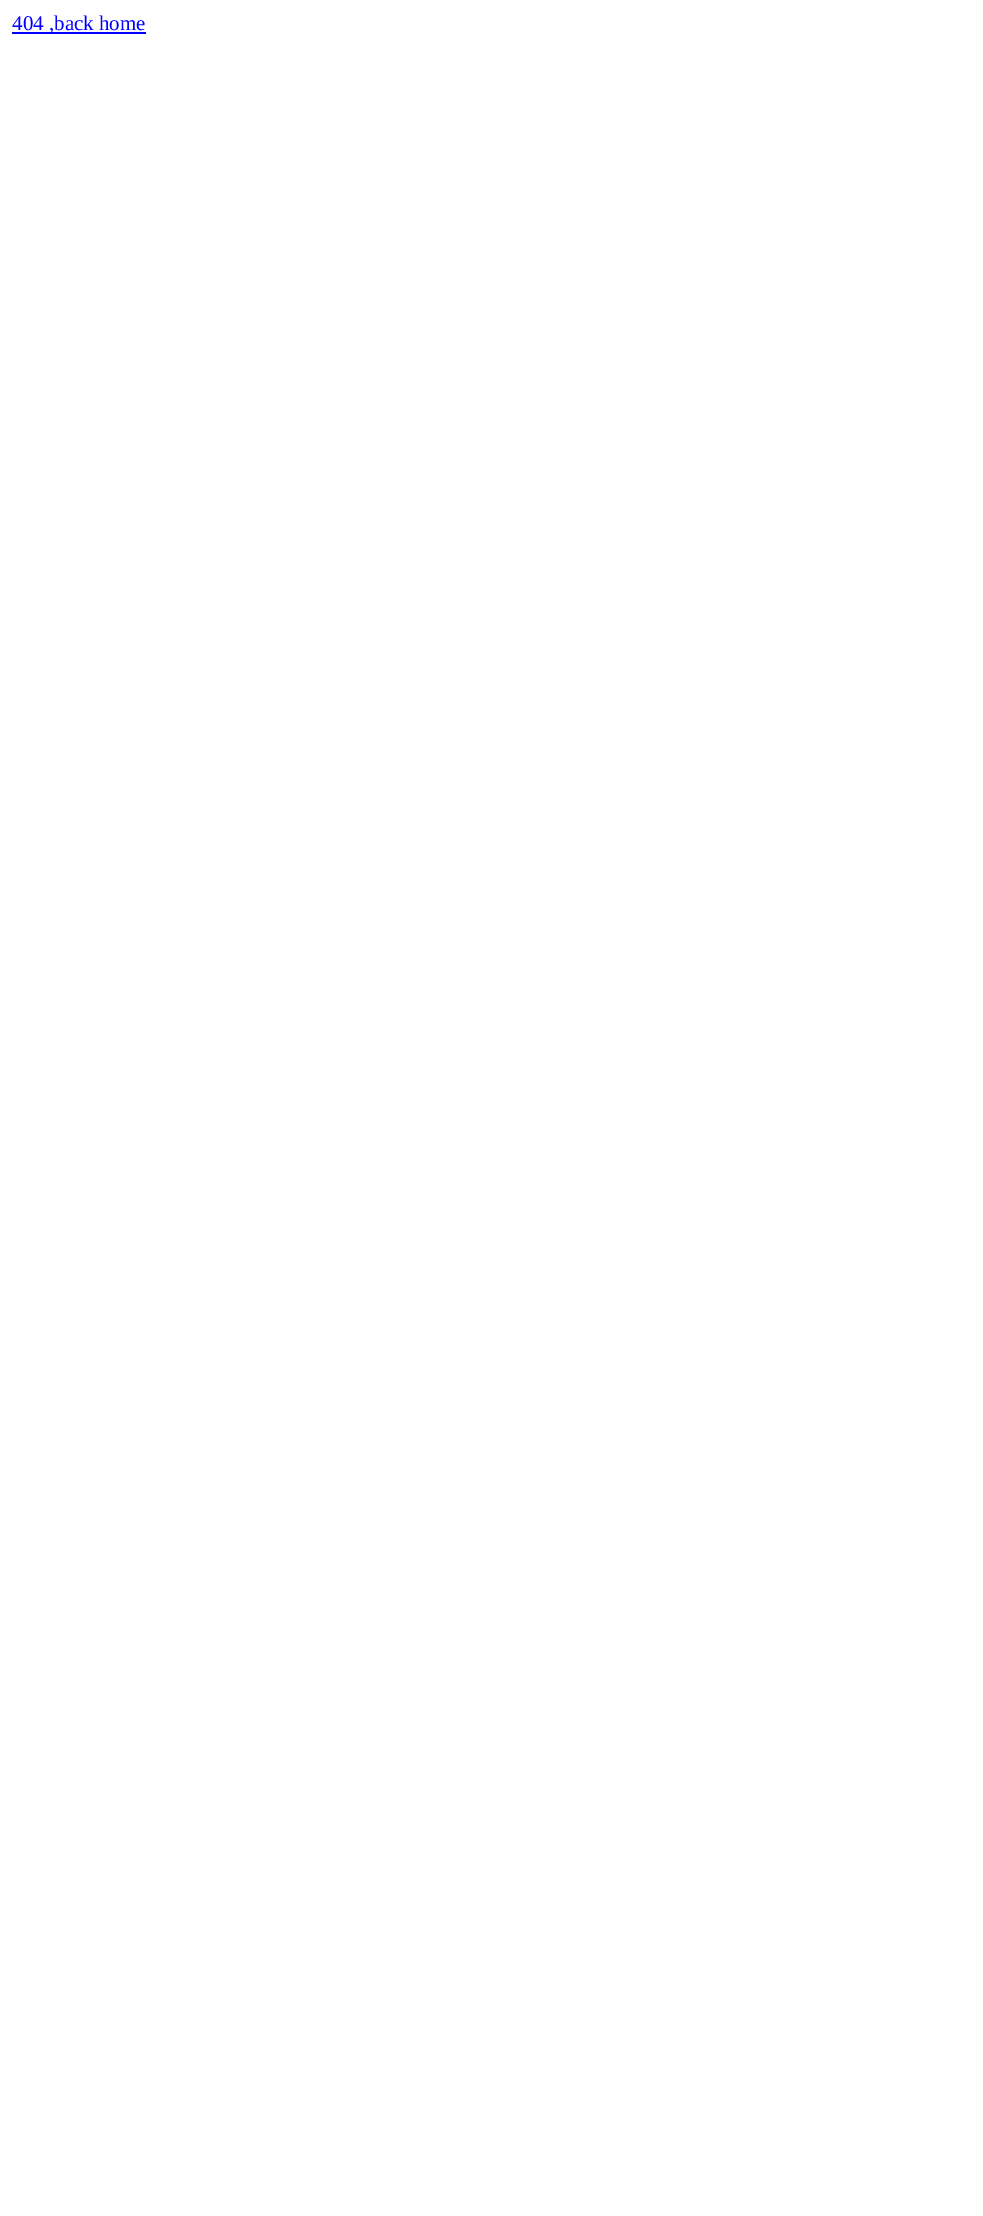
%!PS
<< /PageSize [983 2216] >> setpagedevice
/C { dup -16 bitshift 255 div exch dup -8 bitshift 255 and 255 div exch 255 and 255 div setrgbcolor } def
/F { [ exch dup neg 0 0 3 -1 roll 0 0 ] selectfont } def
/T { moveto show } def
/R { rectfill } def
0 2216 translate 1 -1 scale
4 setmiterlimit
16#FFFFFF C
0 0 983 2216 R
16#0000FF C
12 32 134 2 R
/LiberationSerif-Regular 21 F
(404 ,back home) 12 30 T
showpage
